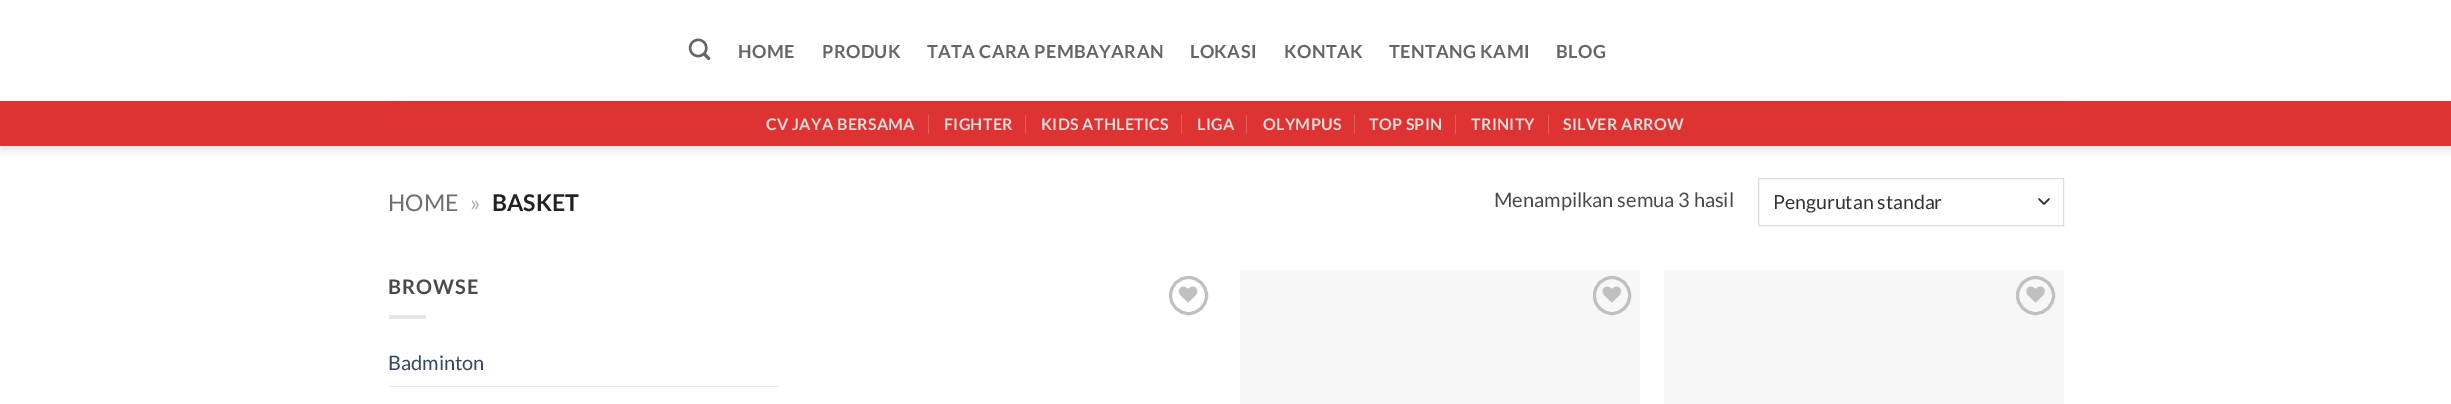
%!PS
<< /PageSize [2451 404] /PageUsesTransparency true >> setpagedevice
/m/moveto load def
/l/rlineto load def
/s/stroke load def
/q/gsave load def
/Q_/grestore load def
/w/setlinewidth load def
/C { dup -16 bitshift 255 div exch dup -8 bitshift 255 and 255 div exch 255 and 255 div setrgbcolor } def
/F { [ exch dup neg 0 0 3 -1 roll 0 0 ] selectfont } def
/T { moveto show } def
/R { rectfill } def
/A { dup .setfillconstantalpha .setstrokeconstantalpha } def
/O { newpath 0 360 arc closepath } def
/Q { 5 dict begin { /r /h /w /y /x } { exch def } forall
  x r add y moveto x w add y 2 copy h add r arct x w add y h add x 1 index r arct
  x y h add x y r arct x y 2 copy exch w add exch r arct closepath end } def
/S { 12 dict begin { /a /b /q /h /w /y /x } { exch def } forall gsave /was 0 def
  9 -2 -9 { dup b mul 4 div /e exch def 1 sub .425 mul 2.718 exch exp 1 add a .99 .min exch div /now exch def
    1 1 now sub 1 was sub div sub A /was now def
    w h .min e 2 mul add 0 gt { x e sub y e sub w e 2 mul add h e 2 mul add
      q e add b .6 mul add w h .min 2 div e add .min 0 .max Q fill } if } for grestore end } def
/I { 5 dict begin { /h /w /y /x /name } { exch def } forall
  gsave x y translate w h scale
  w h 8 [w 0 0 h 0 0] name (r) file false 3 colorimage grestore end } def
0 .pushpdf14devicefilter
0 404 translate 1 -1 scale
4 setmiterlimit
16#FFFFFF C
0 0 2451 404 R
q
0 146 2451 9 rectclip
16#000000 C
1 1 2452 147 0 6 .15 S
Q_
(1.rgb) 688 38 23 23 I
/Lato-Bold 18 F
16#656565 C
738 58 m .4 0 (HOME) ashow
822 58 m .4 0 (PRODUK) ashow
927 58 m .4 0 (TATA CARA PEMBAYARAN) ashow
1190 58 m .4 0 (LOKASI) ashow
1284 58 m .4 0 (KONTAK) ashow
1389 58 m .4 0 (TENTANG KAMI) ashow
1556 58 m .4 0 (BLOG) ashow
16#DD3333 C
0 101 2451 45 R
16#CE3535 C
389 101 1675 1 R
/Lato-Bold 16 F
16#D8D8D8 C
766 130 m .3 0 (CV JAYA BERSAMA) ashow
16#E45C5C C
928 115 1 19 R
16#D8D8D8 C
944 130 m .3 0 (FIGHTER) ashow
16#E45C5C C
1025 115 1 19 R
16#D8D8D8 C
1041 130 m .3 0 (KIDS ATHLETICS) ashow
16#E45C5C C
1181 115 1 19 R
16#D8D8D8 C
1197 130 m .3 0 (LIGA) ashow
16#E45C5C C
1246 115 1 19 R
16#D8D8D8 C
1263 130 m .3 0 (OLYMPUS) ashow
16#E45C5C C
1354 115 1 19 R
16#D8D8D8 C
1369 130 m .3 0 (TOP SPIN) ashow
16#E45C5C C
1455 115 1 19 R
16#D8D8D8 C
1471 130 m .3 0 (TRINITY) ashow
16#E45C5C C
1548 115 1 19 R
16#D8D8D8 C
1563 130 m .3 0 (SILVER ARROW) ashow
/Lato-Regular 23 F
16#6E6E6E C
(HOME) 388 211 T
16#B2B2B2 C
(») 470 211 T
/Lato-Bold 23 F
16#222222 C
(BASKET) 492 211 T
/Lato-Regular 20 F
16#4A4A4A C
(Menampilkan semua 3 hasil) 1494 207 T
16#333333 C
1.7 w
1 setlinecap
1 setlinejoin
2039 199 m 5 5 l 5 -5 l s
16#DDDDDD C
1 w
0 setlinecap
0 setlinejoin
1758.5 178.5 305 47 rectstroke
/Lato-Regular 19.5 F
16#333333 C
(Pengurutan standar) 1773 209 T
/Lato-Bold 20 F
16#4A4A4A C
388 294 m 1 0 (BROWSE) ashow
16#E6E6E6 C
389 315 37 4 R
/Lato-Regular 20 F
16#334862 C
(Badminton) 388 370 T
16#ECECEC C
389 386 390 1 R
16#C0C0C0 C
3 w
1188.5 295.5 18 O s
(2.rgb) 1178 286 20 17 I
16#F7F7F7 C
1240 270 400 134 R
16#C0C0C0 C
1594.5 277.5 35 36 17.5 Q s
(3.rgb) 1602 286 20 17 I
16#F7F7F7 C
1664 270 400 134 R
16#C0C0C0 C
2035.5 295.5 18 O s
(4.rgb) 2026 286 19 17 I
.poppdf14devicefilter showpage
